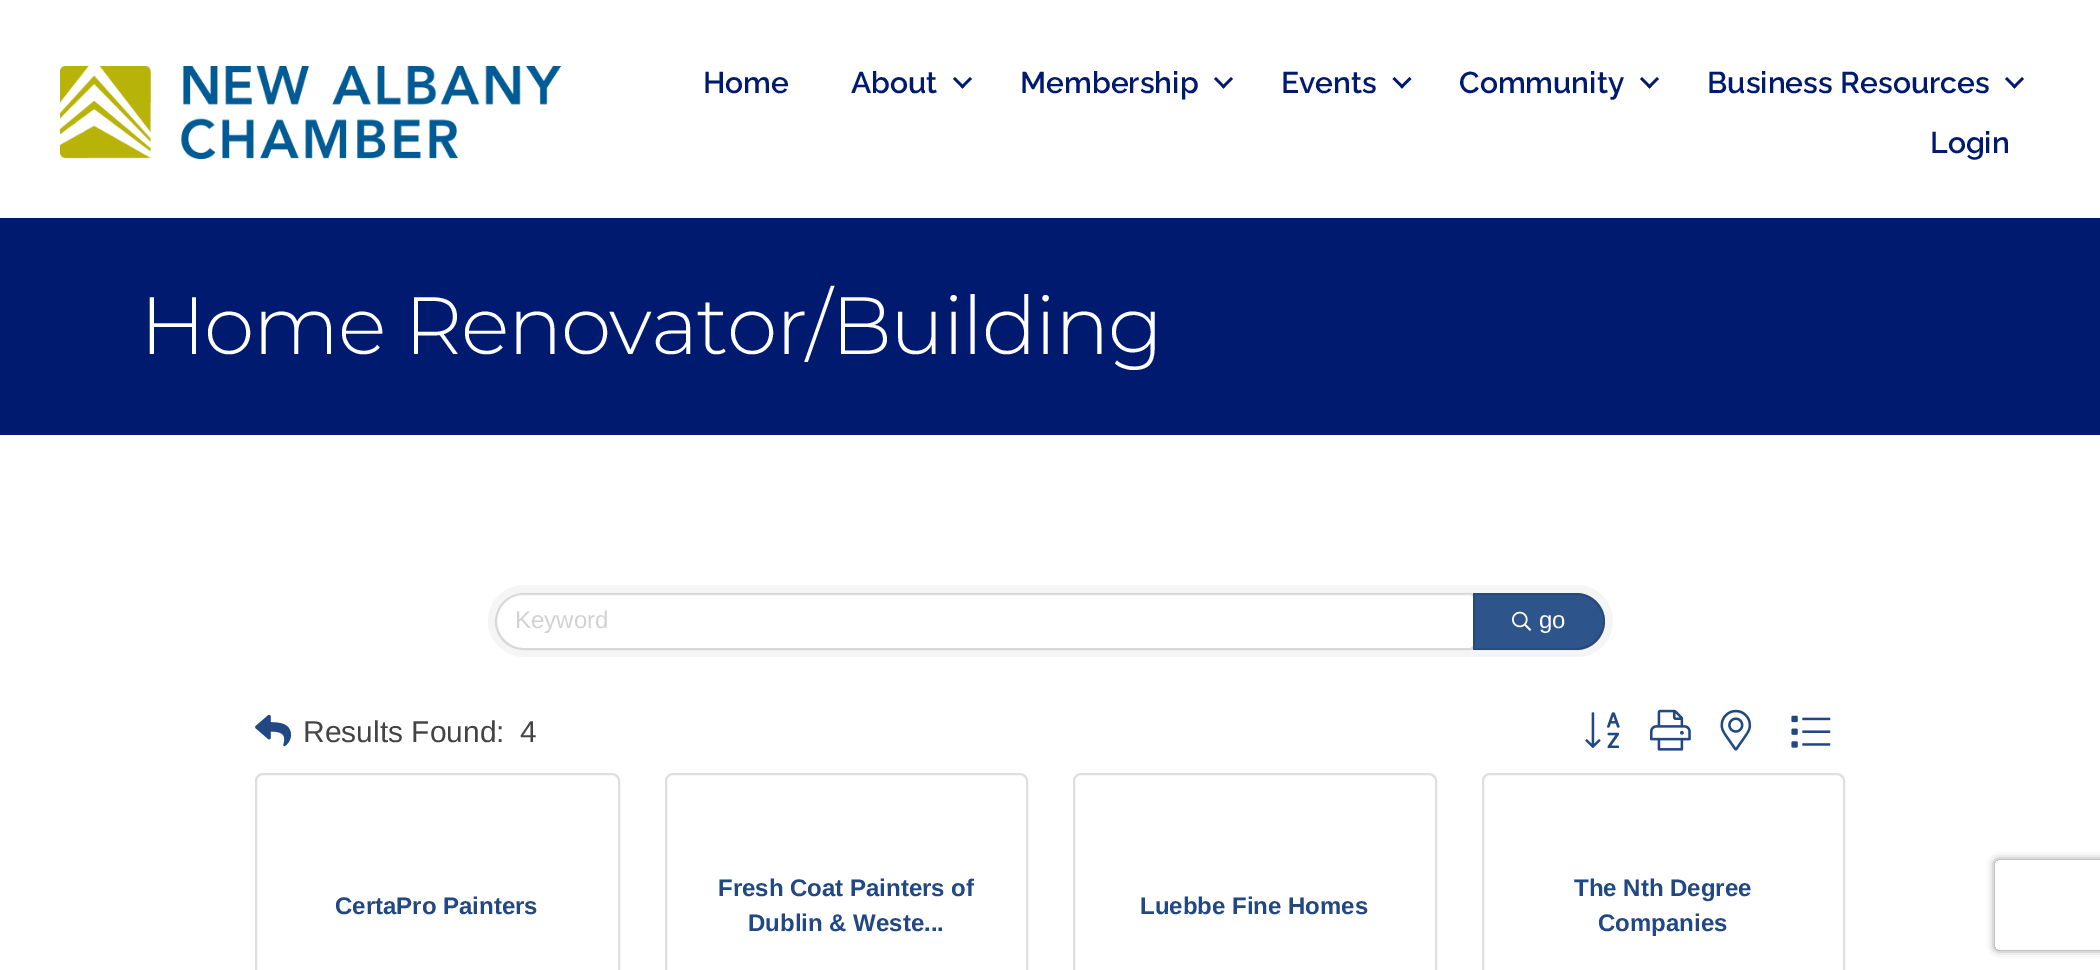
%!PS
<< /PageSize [2100 970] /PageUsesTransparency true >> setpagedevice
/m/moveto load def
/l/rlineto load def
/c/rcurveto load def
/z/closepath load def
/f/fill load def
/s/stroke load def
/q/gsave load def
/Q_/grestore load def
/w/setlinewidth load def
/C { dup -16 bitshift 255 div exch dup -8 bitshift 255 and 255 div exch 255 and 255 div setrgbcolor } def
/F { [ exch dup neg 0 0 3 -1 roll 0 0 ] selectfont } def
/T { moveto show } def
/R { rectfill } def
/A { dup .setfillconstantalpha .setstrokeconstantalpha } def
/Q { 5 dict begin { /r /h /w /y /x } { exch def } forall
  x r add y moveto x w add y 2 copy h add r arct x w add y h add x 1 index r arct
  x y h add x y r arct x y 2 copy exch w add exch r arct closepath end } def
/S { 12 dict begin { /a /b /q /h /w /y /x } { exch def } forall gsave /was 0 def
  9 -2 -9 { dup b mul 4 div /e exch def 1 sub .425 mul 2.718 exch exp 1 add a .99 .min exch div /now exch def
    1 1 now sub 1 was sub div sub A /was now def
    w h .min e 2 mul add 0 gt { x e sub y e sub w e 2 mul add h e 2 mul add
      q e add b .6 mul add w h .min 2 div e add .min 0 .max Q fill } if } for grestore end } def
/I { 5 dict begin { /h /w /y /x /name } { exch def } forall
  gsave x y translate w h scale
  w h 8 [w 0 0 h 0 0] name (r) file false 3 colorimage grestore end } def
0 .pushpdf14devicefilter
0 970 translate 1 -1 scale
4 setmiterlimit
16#FFFFFF C
0 0 2100 970 R
(1.rgb) 60 66 501 93 I
/Raleway-Thin 30 F
16#001A70 C
(Home) 703 93 T
(About) 851 93 T
970 77 m 2 2 l -9.5 9.5 l -2 -2 l z f
955 77 m 9.5 9.5 l -2 2 l -9.5 -9.5 l z f
(Membership) 1020 93 T
1231 77 m 2 2 l -9.5 9.5 l -2 -2 l z f
1216 77 m 9.5 9.5 l -2 2 l -9.5 -9.5 l z f
(Events) 1281 93 T
1409.5 77 m 2 2 l -9.5 9.5 l -2 -2 l z f
1394.5 77 m 9.5 9.5 l -2 2 l -9.5 -9.5 l z f
(Community) 1459 93 T
1657 77 m 2 2 l -9.5 9.5 l -2 -2 l z f
1642 77 m 9.5 9.5 l -2 2 l -9.5 -9.5 l z f
(Business Resources) 1707 93 T
2022 77 m 2 2 l -9.5 9.5 l -2 -2 l z f
2007 77 m 9.5 9.5 l -2 2 l -9.5 -9.5 l z f
(Login) 1930 153 T
0 218 2100 217 R
/Montserrat-Light 81 F
16#FFFFFF C
140 354 m -1.5 0 (Home Renovator/Building) ashow
16#F5F5F5 C
488 585 1125 72 36 Q f
16#FFFFFF C
524 594 m 946 0 l 1.5 0 3 1.5 3 3 c 0 48 l 0 1.5 -1.5 3 -3 3 c -946 0 l -15 0 -27 -12 -27 -27 c 0 -15 12 -27 27 -27 c z f
0.12 A
16#000000 C
2 w
523.5 594 m 946.5 0 l 2 0 4 2 4 4 c 0 47 l 0 2 -2 4 -4 4 c -946.5 0 l -15 0 -27.5 -12.5 -27.5 -27.5 c 0 -15 12.5 -27.5 27.5 -27.5 c z s
/LiberationSans-Regular 24 F
1 A
16#D2D2D2 C
(Keyword) 515 628 T
16#2D548B C
1473 593 m 103.5 0 l 15.5 0 28.5 13 28.5 28.5 c 0 15.5 -13 28.5 -28.5 28.5 c -103.5 0 l z f
0.12 A
16#000000 C
1474 594 m 102.5 0 l 15 0 27.5 12.5 27.5 27.5 c 0 15 -12.5 27.5 -27.5 27.5 c -102.5 0 l z s
1 A
(2.rgb) 1512 611 20 20 I
16#FFFFFF C
(go) 1539 628 T
(3.rgb) 255 714 37 33 I
/LiberationSans-Regular 30 F
16#444444 C
(Results Found:) 303 742 T
(4) 520 742 T
(4.rgb) 1585 712 35 37 I
(5.rgb) 1650 709 41 42 I
(6.rgb) 1720 709 32 42 I
(7.rgb) 1791 715 40 33 I
16#DFDFDF C
256 774 363 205 7 Q s
/LiberationSans-Bold 24 F
16#224884 C
(CertaPro Painters) 335 914 T
16#DFDFDF C
666 774 361 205 7 Q s
16#224884 C
(Fresh Coat Painters of) 718 896 T
(Dublin & Weste...) 748 931 T
16#DFDFDF C
1074 774 362 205 7 Q s
16#224884 C
(Luebbe Fine Homes) 1140 914 T
16#DFDFDF C
1483 774 361 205 7 Q s
16#224884 C
(The Nth Degree) 1574 896 T
(Companies) 1598 931 T
q
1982 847 m 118 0 l 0 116 l -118 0 l z 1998 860 m 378 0 l 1.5 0 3 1.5 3 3 c 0 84 l 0 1.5 -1.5 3 -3 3 c -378 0 l -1.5 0 -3 -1.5 -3 -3 c 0 -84 l 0 -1.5 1.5 -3 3 -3 c z eoclip newpath
16#808080 C
1995 860 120 90 3 4 1 S
Q_
.poppdf14devicefilter showpage
